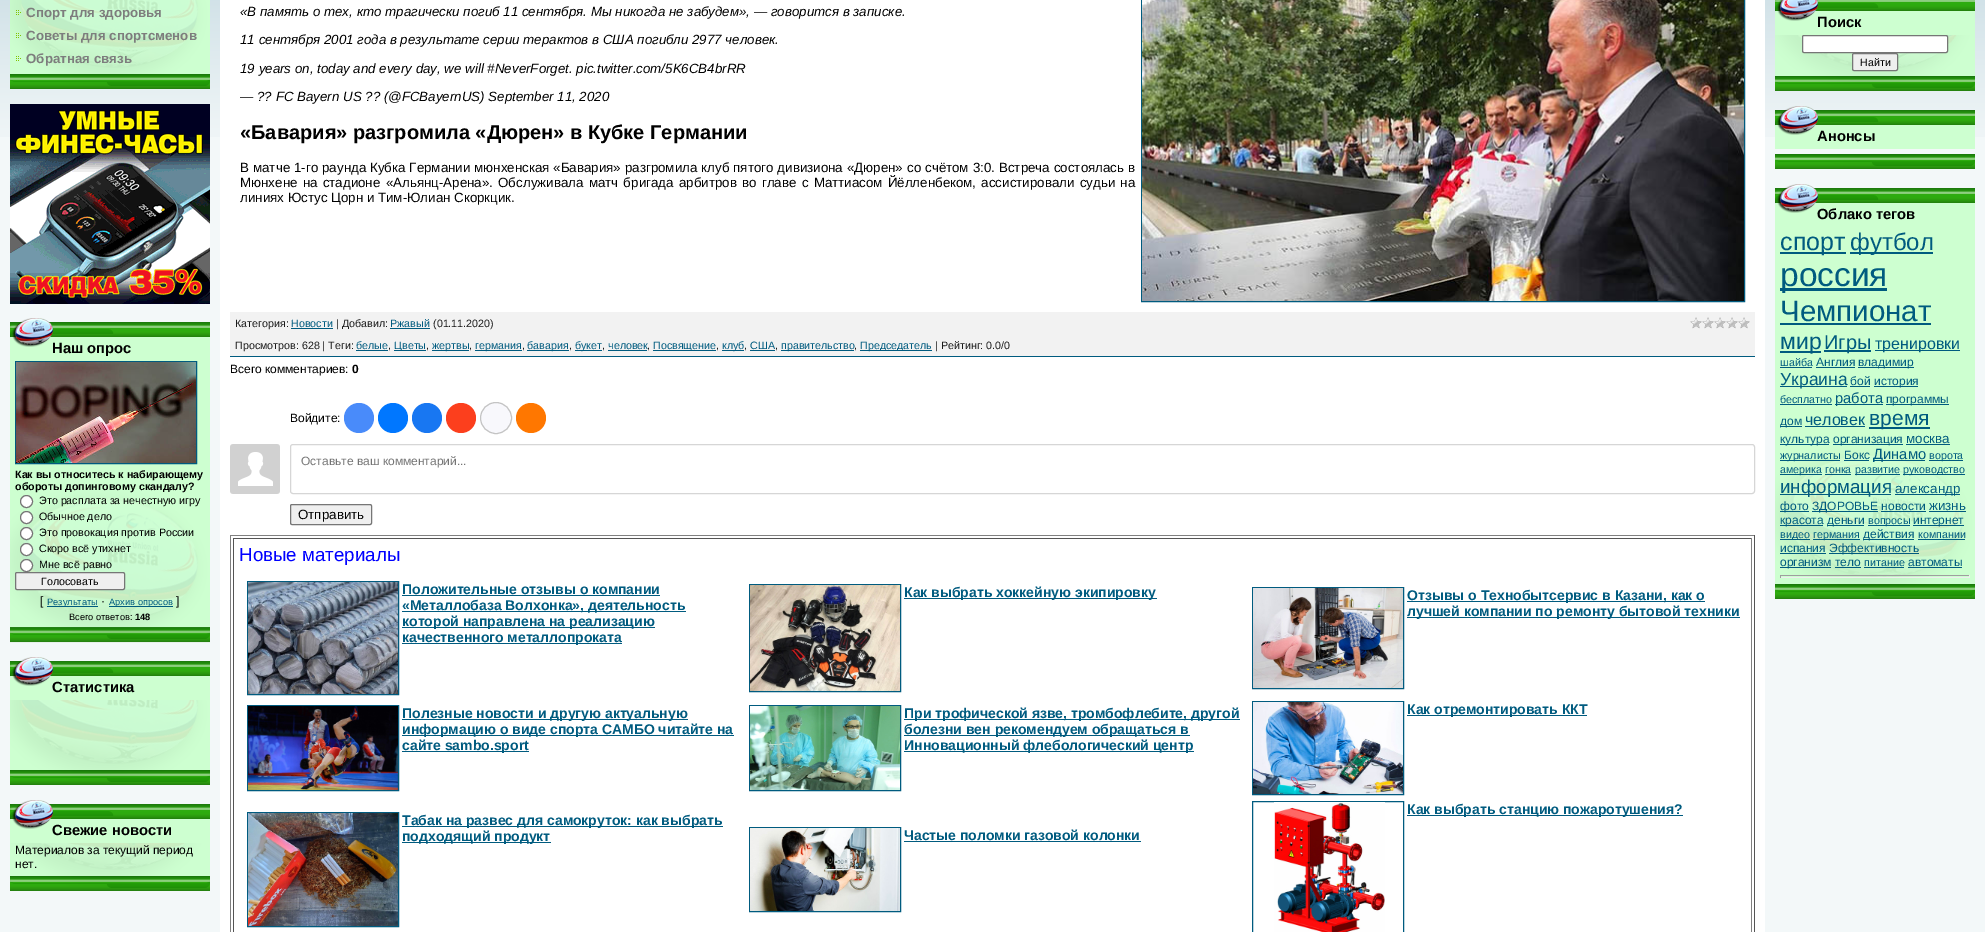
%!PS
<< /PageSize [1985 932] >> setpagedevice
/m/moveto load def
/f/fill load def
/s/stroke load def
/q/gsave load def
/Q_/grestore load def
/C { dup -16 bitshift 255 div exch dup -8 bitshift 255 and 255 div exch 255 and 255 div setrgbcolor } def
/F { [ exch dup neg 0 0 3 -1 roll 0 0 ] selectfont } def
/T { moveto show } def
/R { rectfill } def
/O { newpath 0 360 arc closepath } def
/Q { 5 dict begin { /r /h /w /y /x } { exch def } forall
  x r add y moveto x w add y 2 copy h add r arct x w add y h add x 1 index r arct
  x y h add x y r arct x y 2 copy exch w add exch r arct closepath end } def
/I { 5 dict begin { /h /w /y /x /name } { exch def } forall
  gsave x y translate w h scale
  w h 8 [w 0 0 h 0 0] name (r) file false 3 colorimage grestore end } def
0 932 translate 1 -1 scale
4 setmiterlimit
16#F3F8F9 C
0 0 1985 932 R
(1.rgb) 0 0 1985 137 I
(2.rgb) 10 0 200 89 I
(3.rgb) 16 10 5 5 I
/LiberationSans-Bold 13.33 F
16#7D7D7D C
(Спорт для здоровья) 26 17 T
(4.rgb) 16 33 5 5 I
(Советы для спортсменов) 26 40 T
(5.rgb) 16 56 5 5 I
(Обратная связь) 26 63 T
(6.rgb) 10 104 200 200 I
(7.rgb) 10 318 200 43 I
/LiberationSans-Bold 14.75 F
16#000000 C
(Наш опрос) 52 353 T
(8.rgb) 10 361 200 282 I
16#005B7F C
15.5 361.5 181 102 rectstroke
(9.rgb) 16 362 180 101 I
/LiberationSans-Bold 10.7 F
16#000000 C
(Как вы относитесь к набирающему) 15 478 T
(обороты допинговому скандалу?) 15 490 T
16#FFFFFF C
26.5 501.5 6 O q f Q_
16#767676 C
s
/LiberationSans-Regular 10.7 F
16#000000 C
(Это расплата за нечестную игру) 39 504 T
16#FFFFFF C
26.5 517.5 6 O q f Q_
16#767676 C
s
16#000000 C
(Обычное дело) 39 520 T
16#FFFFFF C
26.5 533.5 6 O q f Q_
16#767676 C
s
16#000000 C
(Это провокация против России) 39 536 T
16#FFFFFF C
26.5 549.5 6 O q f Q_
16#767676 C
s
16#000000 C
(Скоро всё утихнет) 39 552 T
16#FFFFFF C
26.5 565.5 6 O q f Q_
16#767676 C
s
16#000000 C
(Мне всё равно) 39 568 T
16#EFEFEF C
15.5 572.5 109 17 1.5 Q q f Q_
16#767676 C
s
16#000000 C
(Голосовать) 41 585 T
/LiberationSans-Regular 12 F
([) 40 605 T
16#005B7F C
47 606 51 1 R
/LiberationSans-Regular 9.25 F
(Результаты) 47 605 T
/LiberationSans-Regular 12 F
16#000000 C
(·) 101 605 T
16#005B7F C
109 606 64 1 R
/LiberationSans-Regular 9.25 F
(Архив опросов) 109 605 T
/LiberationSans-Regular 12 F
16#000000 C
(]) 176 605 T
/LiberationSans-Regular 9.25 F
(Всего ответов:) 69 620 T
/LiberationSans-Bold 9.25 F
(148) 135 620 T
(7.rgb) 10 657 200 43 I
/LiberationSans-Bold 14.75 F
(Статистика) 52 692 T
(10.rgb) 10 700 200 85 I
(7.rgb) 10 800 200 43 I
(Свежие новости) 52 835 T
(11.rgb) 10 843 200 48 I
/LiberationSans-Regular 12 F
(Материалов за текущий период) 15 854 T
(нет.) 15 868 T
16#FFFFFF C
220 0 1545 932 R
16#005B7F C
230 356 1525 1 R
/LiberationSans-Italic 13.33 F
16#000000 C
(«В память о тех, кто трагически погиб 11 сентября. Мы никогда не забудем», — говорится в записке.) 240 16 T
16#005B7F C
1141.5 -.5 603 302 rectstroke
(12.rgb) 1142 0 602 301 I
16#000000 C
(11 сентября 2001 года в результате серии терактов в США погибли 2977 человек.) 240 44 T
(19 years on, today and every day, we will #NeverForget. pic.twitter.com/5K6CB4brRR) 240 73 T
(— ?? FC Bayern US ?? \(@FCBayernUS\) September 11, 2020) 240 101 T
/LiberationSans-Bold 20 F
(«Бавария» разгромила «Дюрен» в Кубке Германии) 240 139 T
/LiberationSans-Regular 13.33 F
240 172 m .3 0 32 (В матче 1-го раунда Кубка Германии мюнхенская «Бавария» разгромила клуб пятого дивизиона «Дюрен» со счётом 3:0. Встреча состоялась в) widthshow
240 187 m 1.6 0 32 (Мюнхене на стадионе «Альянц-Арена». Обслуживала матч бригада арбитров во главе с Маттиасом Йёлленбеком, ассистировали судьи на) widthshow
(линиях Юстус Цорн и Тим-Юлиан Скоркцик.) 240 202 T
16#F2F2F2 C
230 312 1525 44 R
/LiberationSans-Regular 10.7 F
16#1A1A1A C
(Категория:) 235 327 T
16#005B7F C
(Новости) 291 327 T
291 328 42 1 R
16#1A1A1A C
(| Добавил:) 336 327 T
16#005B7F C
(Ржавый) 390 327 T
390 328 40 1 R
16#1A1A1A C
(\(01.11.2020\)) 433 327 T
(13.rgb) 1690 317 60 12 I
(Просмотров: 628 | Теги:) 235 349 T
16#005B7F C
(белые) 356 349 T
16#1A1A1A C
(,) 388 349 T
16#005B7F C
356 350 32 1 R
394 350 32 1 R
(Цветы) 394 349 T
16#1A1A1A C
(,) 426 349 T
16#005B7F C
432 350 37 1 R
(жертвы) 432 349 T
16#1A1A1A C
(,) 469 349 T
16#005B7F C
475 350 47 1 R
(германия) 475 349 T
16#1A1A1A C
(,) 522 349 T
16#005B7F C
527 350 42 1 R
(бавария) 527 349 T
16#1A1A1A C
(,) 569 349 T
16#005B7F C
575 350 27 1 R
(букет) 575 349 T
16#1A1A1A C
(,) 602 349 T
16#005B7F C
(человек) 608 349 T
16#1A1A1A C
(,) 647 349 T
16#005B7F C
608 350 39 1 R
653 350 63 1 R
(Посвящение) 653 349 T
16#1A1A1A C
(,) 716 349 T
16#005B7F C
722 350 22 1 R
(клуб) 722 349 T
16#1A1A1A C
(,) 744 349 T
16#005B7F C
(США) 750 349 T
16#1A1A1A C
(,) 775 349 T
16#005B7F C
750 350 25 1 R
781 350 73 1 R
(правительство) 781 349 T
16#1A1A1A C
(,) 854 349 T
16#005B7F C
860 350 72 1 R
(Председатель) 860 349 T
16#1A1A1A C
(| Рейтинг: 0.0/0) 935 349 T
/LiberationSans-Regular 12 F
16#000000 C
(Всего комментариев:) 230 373 T
/LiberationSans-Bold 12 F
(0) 352 373 T
/LiberationSans-Regular 12 F
(Войдите:) 290 422 T
16#498BFA C
359 418 15 O f
16#0077FF C
393 418 15 O f
16#1877F2 C
427 418 15 O f
16#FC3F1D C
461 418 15 O f
16#F8F8FC C
496 418 15.5 O q f Q_
16#C4C4C4 C
s
16#FF7700 C
531 418 15 O f
(14.rgb) 230 444 50 50 I
16#D6D6D6 C
290.5 444.5 1464 49 2.5 Q s
16#757575 C
(Оставьте ваш комментарий...) 301 465 T
16#EFEFEF C
290.5 504.5 81 20 1.5 Q q f Q_
16#767676 C
s
/LiberationSans-Regular 13.33 F
16#000000 C
(Отправить) 298 519 T
16#808080 C
230 535 1525 1 R
16#555555 C
1754 535 1 397 R
16#808080 C
230 535 1 397 R
16#555555 C
233 538 1519 1 R
16#808080 C
1751 538 1 394 R
16#555555 C
233 538 1 394 R
/LiberationSans-Regular 18.75 F
16#0000FF C
(Новые материалы) 239 561 T
16#005B7F C
247.5 581.5 151 113 rectstroke
(15.rgb) 248 582 150 112 I
/LiberationSans-Bold 14 F
(Положительные отзывы о компании) 402 594 T
402 595 258 1 R
402 611 284 1 R
(«Металлобаза Волхонка», деятельность) 402 610 T
402 627 253 1 R
(которой направлена на реализацию) 402 626 T
402 643 220 1 R
(качественного металлопроката) 402 642 T
749.5 584.5 151 107 rectstroke
(16.rgb) 750 585 150 106 I
904 598 253 1 R
(Как выбрать хоккейную экипировку) 904 597 T
1252.5 587.5 151 101 rectstroke
(17.rgb) 1253 588 150 100 I
1407 601 298 1 R
(Отзывы о Технобытсервис в Казани, как о) 1407 600 T
1407 617 333 1 R
(лучшей компании по ремонту бытовой техники) 1407 616 T
247.5 705.5 151 85 rectstroke
(18.rgb) 248 706 150 84 I
402 719 286 1 R
(Полезные новости и другую актуальную) 402 718 T
402 735 332 1 R
(информацию о виде спорта САМБО читайте на) 402 734 T
402 751 127 1 R
(сайте sambo.sport) 402 750 T
749.5 705.5 151 85 rectstroke
(19.rgb) 750 706 150 84 I
904 719 336 1 R
(При трофической язве, тромбофлебите, другой) 904 718 T
904 735 286 1 R
(болезни вен рекомендуем обращаться в) 904 734 T
904 751 290 1 R
(Инновационный флебологический центр) 904 750 T
1252.5 701.5 151 93 rectstroke
(20.rgb) 1253 702 150 92 I
1407 715 180 1 R
(Как отремонтировать ККТ) 1407 714 T
1252.5 801.5 151 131 rectstroke
(21.rgb) 1274 802 111 130 I
1407 815 276 1 R
(Как выбрать станцию пожаротушения?) 1407 814 T
247.5 812.5 151 114 rectstroke
(22.rgb) 248 813 150 113 I
402 826 321 1 R
(Табак на развес для самокруток: как выбрать) 402 825 T
402 842 149 1 R
(подходящий продукт) 402 841 T
749.5 827.5 151 84 rectstroke
(23.rgb) 750 828 150 83 I
(Частые поломки газовой колонки) 904 840 T
904 841 237 1 R
(24.rgb) 1775 0 200 35 I
/LiberationSans-Bold 14.75 F
16#000000 C
(Поиск) 1817 27 T
(25.rgb) 1775 35 200 56 I
16#FFFFFF C
1802.5 35.5 145 17 1.5 Q q f Q_
16#767676 C
s
16#EFEFEF C
1852.5 53.5 45 17 1.5 Q q f Q_
16#767676 C
s
/LiberationSans-Regular 10.7 F
16#000000 C
(Найти) 1860 66 T
(26.rgb) 1775 106 200 43 I
/LiberationSans-Bold 14.75 F
(Анонсы) 1817 141 T
(27.rgb) 1775 154 200 15 I
(7.rgb) 1775 184 200 43 I
(Облако тегов) 1817 219 T
(28.rgb) 1775 227 200 372 I
16#005B7F C
1780 252 66 2 R
/LiberationSans-Regular 25 F
(спорт) 1780 250 T
1850 252 83 2 R
/LiberationSans-Regular 24 F
(футбол) 1850 250 T
1780 288 107 3 R
/LiberationSans-Regular 33.5 F
(россия) 1780 286 T
/LiberationSans-Regular 29.5 F
(Чемпионат) 1780 321 T
1780 323 151 2 R
1780 351 41 2 R
/LiberationSans-Regular 23 F
(мир) 1780 349 T
1824 350 47 2 R
/LiberationSans-Regular 20 F
(Игры) 1824 349 T
1875 350 85 1 R
/LiberationSans-Regular 16 F
(тренировки) 1875 349 T
/LiberationSans-Regular 10.7 F
(шайба) 1780 366 T
1780 367 32 1 R
/LiberationSans-Regular 12 F
(Англия) 1816 366 T
1816 367 39 1 R
1858 367 56 1 R
(владимир) 1858 366 T
1780 386 67 1 R
/LiberationSans-Regular 17.5 F
(Украина) 1780 385 T
/LiberationSans-Regular 12 F
(бой) 1850 385 T
1850 386 20 1 R
1874 386 44 1 R
(история) 1874 385 T
/LiberationSans-Regular 10.7 F
(бесплатно) 1780 403 T
1780 404 52 1 R
1835 404 48 1 R
/LiberationSans-Regular 14.75 F
(работа) 1835 403 T
1886 404 63 1 R
/LiberationSans-Regular 12 F
(программы) 1886 403 T
1780 426 22 1 R
(дом) 1780 425 T
1805 426 60 1 R
/LiberationSans-Regular 16 F
(человек) 1805 425 T
1869 427 61 2 R
/LiberationSans-Regular 21 F
(время) 1869 425 T
1780 444 49 1 R
/LiberationSans-Regular 12 F
(культура) 1780 443 T
1833 444 70 1 R
(организация) 1833 443 T
/LiberationSans-Regular 13.33 F
(москва) 1906 443 T
1906 444 44 1 R
1780 460 60 1 R
/LiberationSans-Regular 10.7 F
(журналисты) 1780 459 T
1844 460 25 1 R
/LiberationSans-Regular 12 F
(Бокс) 1844 459 T
1873 460 52 1 R
/LiberationSans-Regular 14.75 F
(Динамо) 1873 459 T
1929 460 34 1 R
/LiberationSans-Regular 10.7 F
(ворота) 1929 459 T
1780 474 42 1 R
(америка) 1780 473 T
(гонка) 1825 473 T
1825 474 26 1 R
1855 474 45 1 R
(развитие) 1855 473 T
1903 474 62 1 R
(руководство) 1903 473 T
1780 494 111 1 R
/LiberationSans-Regular 18.75 F
(информация) 1780 493 T
1895 494 65 1 R
/LiberationSans-Regular 13.33 F
(александр) 1895 493 T
1780 511 29 1 R
/LiberationSans-Regular 12 F
(фото) 1780 510 T
1812 511 66 1 R
(ЗДОРОВЬЕ новости) 1812 510 T
1881 511 45 1 R
/LiberationSans-Regular 13.33 F
(жизнь) 1929 510 T
1929 511 37 1 R
1780 525 43 1 R
/LiberationSans-Regular 12 F
(красота) 1780 524 T
1827 525 37 1 R
(деньги) 1827 524 T
1868 525 42 1 R
/LiberationSans-Regular 10.7 F
(вопросы) 1868 524 T
1913 525 51 1 R
/LiberationSans-Regular 12 F
(интернет) 1913 524 T
1780 539 30 1 R
/LiberationSans-Regular 10.7 F
(видео) 1780 538 T
1813 539 47 1 R
(германия) 1813 538 T
1863 539 51 1 R
/LiberationSans-Regular 12 F
(действия) 1863 538 T
/LiberationSans-Regular 10.7 F
(компании) 1918 538 T
1918 539 47 1 R
/LiberationSans-Regular 12 F
(испания) 1780 552 T
1780 553 46 1 R
1829 553 90 1 R
(Эффективность) 1829 552 T
1780 567 51 1 R
(организм тело) 1780 566 T
1835 567 26 1 R
/LiberationSans-Regular 10.7 F
(питание) 1864 566 T
1864 567 40 1 R
/LiberationSans-Regular 12 F
(автоматы) 1908 566 T
1908 567 54 1 R
16#9F9F9F C
1780 575 190 1 R
16#EEEEEE C
1969 575 1 3 R
1780 577 190 1 R
16#9F9F9F C
1780 575 1 3 R
showpage
